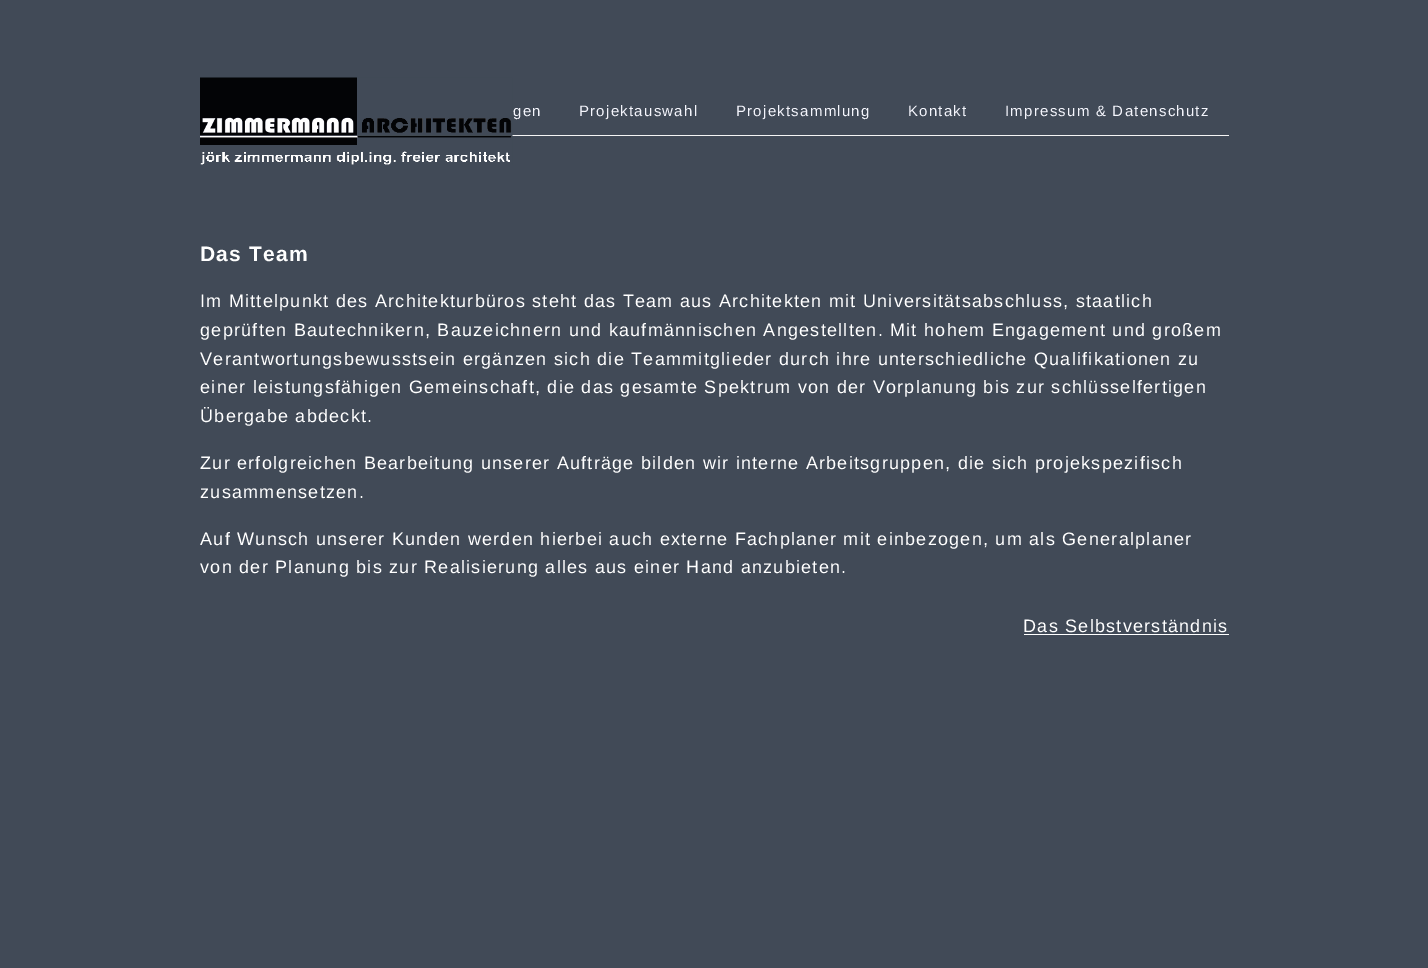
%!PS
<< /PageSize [1428 968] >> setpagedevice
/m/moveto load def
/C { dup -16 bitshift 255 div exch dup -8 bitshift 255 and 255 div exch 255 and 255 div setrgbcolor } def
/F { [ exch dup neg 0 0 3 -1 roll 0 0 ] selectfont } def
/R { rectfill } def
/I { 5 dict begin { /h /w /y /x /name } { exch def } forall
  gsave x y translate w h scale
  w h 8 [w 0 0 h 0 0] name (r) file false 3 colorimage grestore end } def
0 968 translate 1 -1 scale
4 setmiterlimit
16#414A57 C
0 0 1428 968 R
16#F5F5F5 C
512 135 717 1 R
(1.rgb) 200 77 313 88 I
/LiberationSans-Regular 15 F
16#F4F5FC C
513 116 m 1.25 0 (gen) ashow
579 116 m 1.25 0 (Projektauswahl) ashow
736 116 m 1.25 0 (Projektsammlung) ashow
908 116 m 1.25 0 (Kontakt) ashow
1005 116 m 1.25 0 (Impressum & Datenschutz) ashow
/LiberationSans-Bold 21 F
16#FFFFFF C
200 261 m 1.25 0 (Das Team) ashow
/LiberationSans-Regular 18 F
200 307 m 1.25 0 (Im Mittelpunkt des Architekturbüros steht das Team aus Architekten mit Universitätsabschluss, staatlich) ashow
200 336 m 1.25 0 (geprüften Bautechnikern, Bauzeichnern und kaufmännischen Angestellten. Mit hohem Engagement und großem) ashow
200 365 m 1.25 0 (Verantwortungsbewusstsein ergänzen sich die Teammitglieder durch ihre unterschiedliche Qualifikationen zu) ashow
200 393 m 1.25 0 (einer leistungsfähigen Gemeinschaft, die das gesamte Spektrum von der Vorplanung bis zur schlüsselfertigen) ashow
200 422 m 1.25 0 (Übergabe abdeckt.) ashow
200 469 m 1.25 0 (Zur erfolgreichen Bearbeitung unserer Aufträge bilden wir interne Arbeitsgruppen, die sich projekspezifisch) ashow
200 498 m 1.25 0 (zusammensetzen.) ashow
200 545 m 1.25 0 (Auf Wunsch unserer Kunden werden hierbei auch externe Fachplaner mit einbezogen, um als Generalplaner) ashow
200 573 m 1.25 0 (von der Planung bis zur Realisierung alles aus einer Hand anzubieten.) ashow
1023 632 m 1.25 0 (Das Selbstverständnis) ashow
1024 634 205 1 R
showpage
